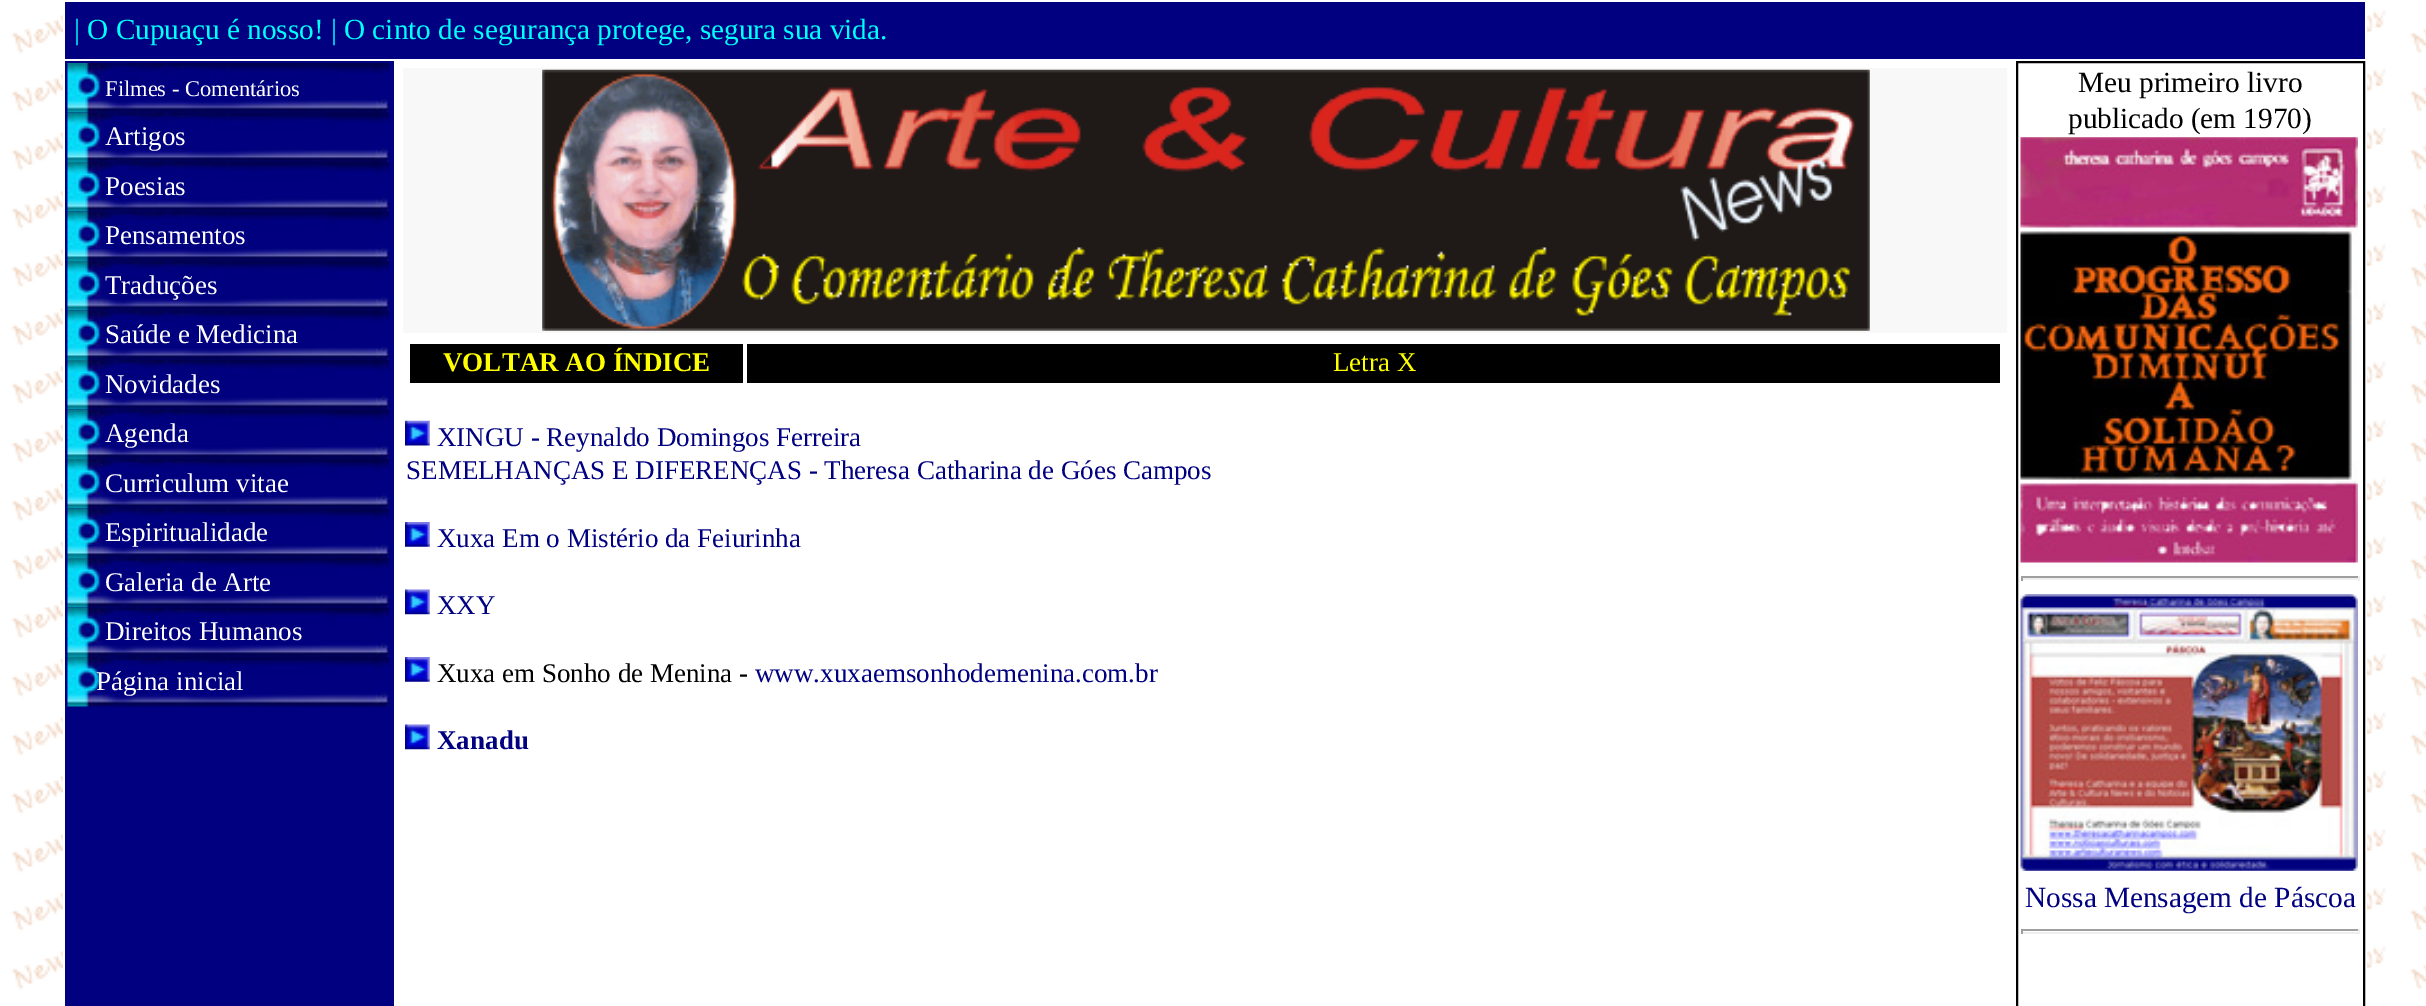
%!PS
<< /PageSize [2426 1006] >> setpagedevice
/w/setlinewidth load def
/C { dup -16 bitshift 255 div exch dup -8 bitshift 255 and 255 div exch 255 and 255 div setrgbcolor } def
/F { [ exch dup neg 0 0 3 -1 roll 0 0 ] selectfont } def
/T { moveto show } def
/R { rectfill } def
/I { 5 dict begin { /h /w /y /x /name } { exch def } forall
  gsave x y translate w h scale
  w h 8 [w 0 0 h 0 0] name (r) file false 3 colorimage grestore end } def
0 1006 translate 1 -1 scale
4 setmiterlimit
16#FFFFFF C
0 0 2426 1006 R
(1.rgb) 0 0 2426 1006 I
63 9 2304 997 R
16#000080 C
65 2 2300 57 R
/LiberationSerif-Regular 29.25 F
16#00FFFF C
(| O Cupuaçu é nosso! | O cinto de segurança protege, segura sua vida.) 74 39 T
16#000080 C
65 61 329 945 R
(2.rgb) 67 63 323 50 I
/LiberationSerif-Regular 22.5 F
16#FFFFFF C
(Filmes - Comentários) 105 96 T
(3.rgb) 67 112 323 50 I
/LiberationSerif-Regular 27 F
(Artigos) 105 145 T
(2.rgb) 67 162 323 50 I
(Poesias) 105 195 T
(3.rgb) 67 211 323 50 I
(Pensamentos) 105 244 T
(2.rgb) 67 261 323 50 I
(Traduções) 105 294 T
(3.rgb) 67 310 323 50 I
(Saúde e Medicina) 105 343 T
(2.rgb) 67 360 323 50 I
(Novidades) 105 393 T
(3.rgb) 67 409 323 50 I
(Agenda) 105 442 T
(2.rgb) 67 459 323 50 I
(Curriculum vitae) 105 492 T
(3.rgb) 67 508 323 50 I
(Espiritualidade) 105 541 T
(4.rgb) 67 558 323 50 I
(Galeria de Arte) 105 591 T
(3.rgb) 67 607 323 50 I
(Direitos Humanos) 105 640 T
(2.rgb) 67 657 323 50 I
(Página inicial) 96 690 T
16#F8F8F8 C
403 68 1604 265 R
(5.rgb) 542 69 1328 262 I
16#000000 C
410 344 333 39 R
/LiberationSerif-Bold 27 F
16#FFFF00 C
(VOLTAR AO ÍNDICE) 443 371 T
16#000000 C
747 344 1253 39 R
/LiberationSerif-Regular 27 F
16#FFFF00 C
(Letra X) 1333 371 T
(6.rgb) 405 420 25 26 I
16#000080 C
(XINGU - Reynaldo Domingos Ferreira) 437 446 T
(SEMELHANÇAS E DIFERENÇAS - Theresa Catharina de Góes Campos) 406 479 T
(7.rgb) 405 522 25 25 I
(Xuxa Em o Mistério da Feiurinha) 437 547 T
(8.rgb) 405 589 25 26 I
(XXY) 437 614 T
(7.rgb) 405 657 25 25 I
16#000000 C
(Xuxa em Sonho de Menina -) 437 682 T
16#000080 C
(www.xuxaemsonhodemenina.com.br) 755 682 T
(8.rgb) 405 724 25 26 I
/LiberationSerif-Bold 27 F
(Xanadu) 437 749 T
16#000000 C
2 w
2017 62 347 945 rectstroke
/LiberationSerif-Regular 29.25 F
(Meu primeiro livro) 2078 92 T
(publicado \(em 1970\)) 2068 128 T
(9.rgb) 2020 137 338 426 I
16#9F9F9F C
2021 576 339 2 R
16#EEEEEE C
2358 576 2 5 R
2021 578 339 2 R
16#9F9F9F C
2021 576 2 5 R
(10.rgb) 2020 594 338 277 I
16#000080 C
(Nossa Mensagem de Páscoa) 2025 907 T
16#9F9F9F C
2021 929 339 2 R
16#EEEEEE C
2358 929 2 5 R
2021 932 339 2 R
16#9F9F9F C
2021 929 2 5 R
showpage
